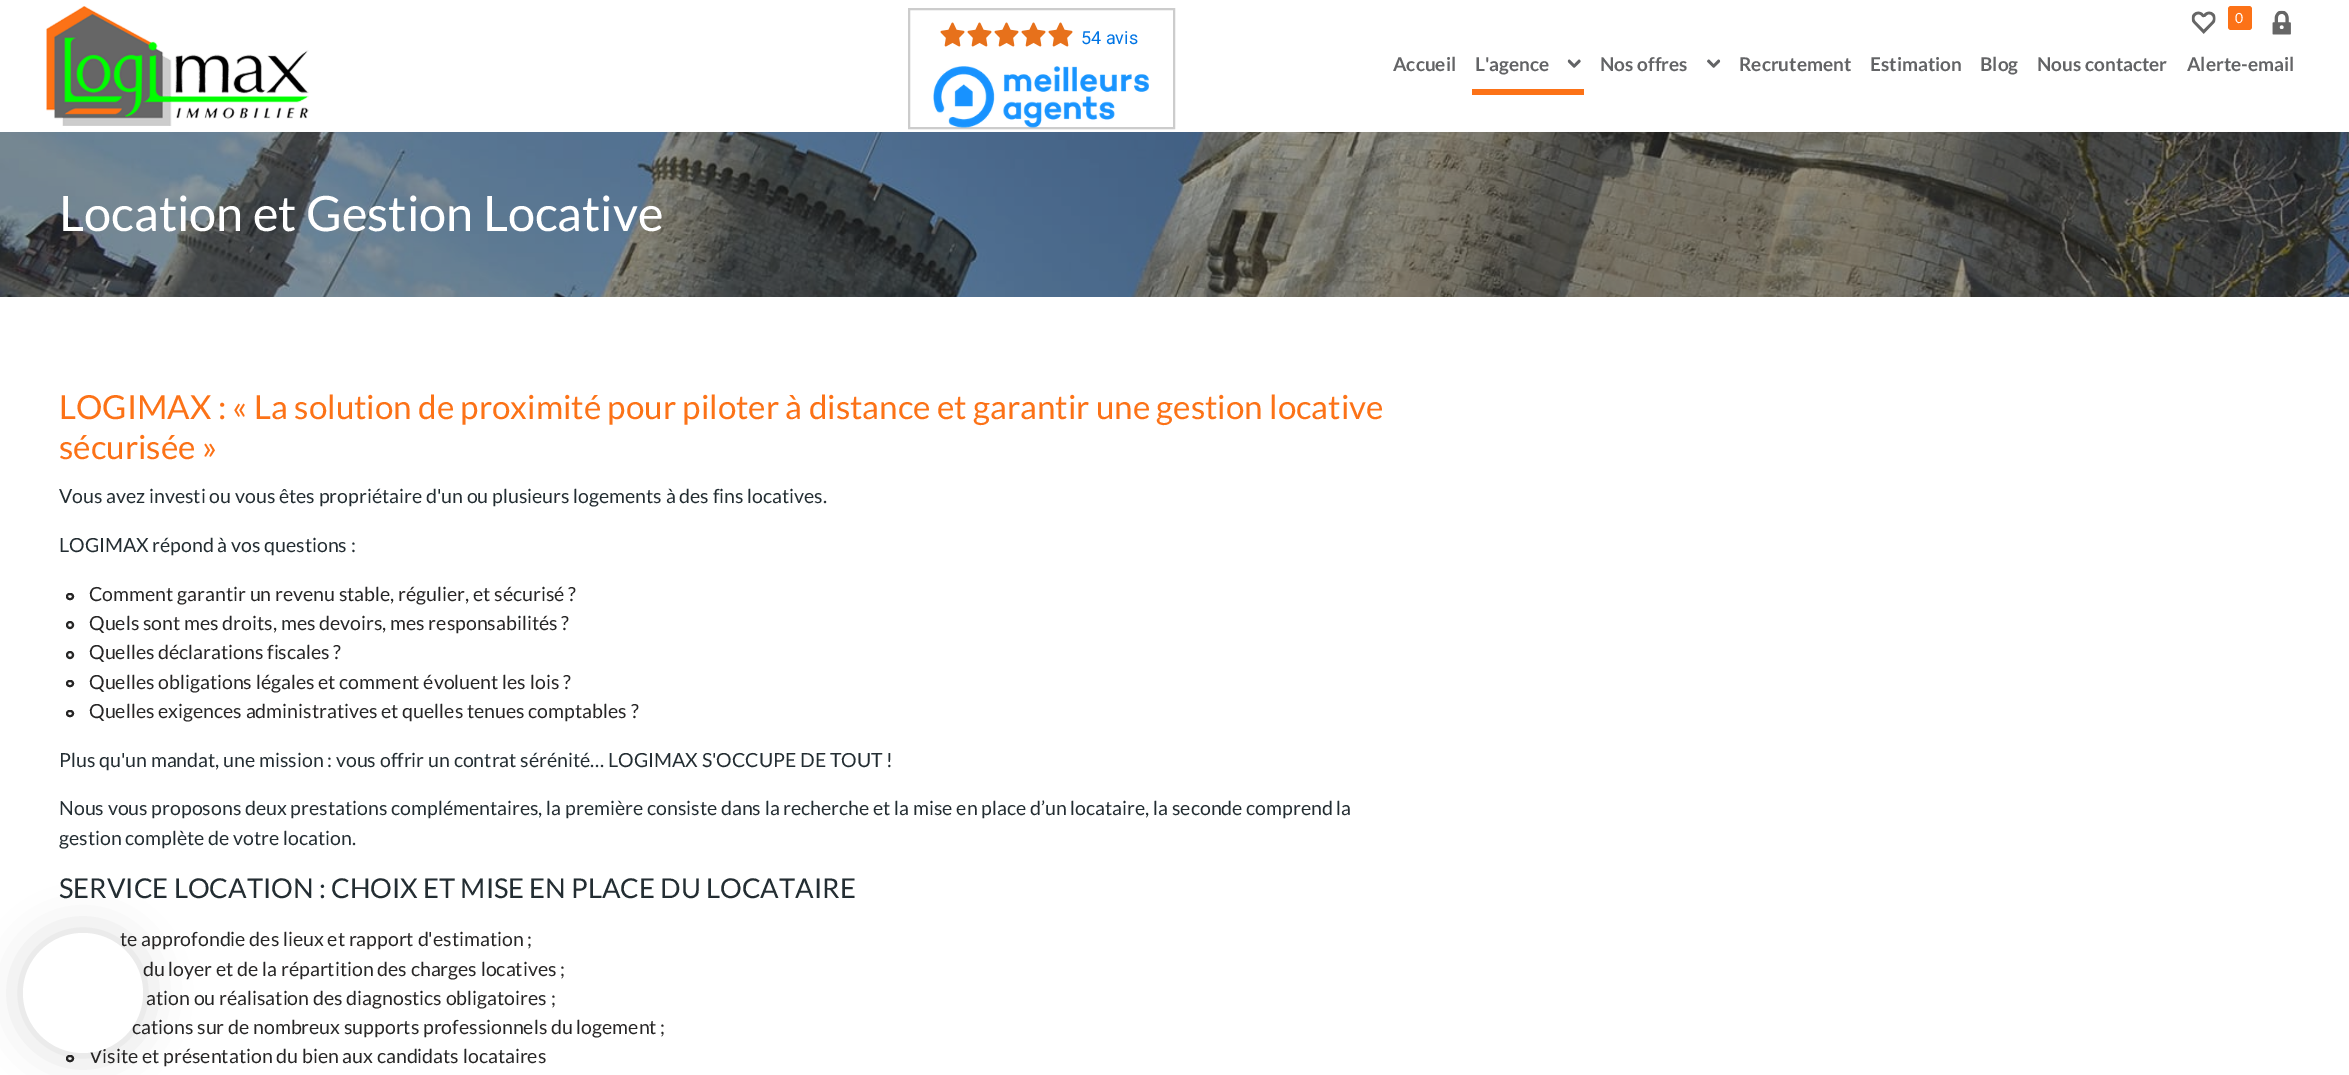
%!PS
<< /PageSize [2349 1075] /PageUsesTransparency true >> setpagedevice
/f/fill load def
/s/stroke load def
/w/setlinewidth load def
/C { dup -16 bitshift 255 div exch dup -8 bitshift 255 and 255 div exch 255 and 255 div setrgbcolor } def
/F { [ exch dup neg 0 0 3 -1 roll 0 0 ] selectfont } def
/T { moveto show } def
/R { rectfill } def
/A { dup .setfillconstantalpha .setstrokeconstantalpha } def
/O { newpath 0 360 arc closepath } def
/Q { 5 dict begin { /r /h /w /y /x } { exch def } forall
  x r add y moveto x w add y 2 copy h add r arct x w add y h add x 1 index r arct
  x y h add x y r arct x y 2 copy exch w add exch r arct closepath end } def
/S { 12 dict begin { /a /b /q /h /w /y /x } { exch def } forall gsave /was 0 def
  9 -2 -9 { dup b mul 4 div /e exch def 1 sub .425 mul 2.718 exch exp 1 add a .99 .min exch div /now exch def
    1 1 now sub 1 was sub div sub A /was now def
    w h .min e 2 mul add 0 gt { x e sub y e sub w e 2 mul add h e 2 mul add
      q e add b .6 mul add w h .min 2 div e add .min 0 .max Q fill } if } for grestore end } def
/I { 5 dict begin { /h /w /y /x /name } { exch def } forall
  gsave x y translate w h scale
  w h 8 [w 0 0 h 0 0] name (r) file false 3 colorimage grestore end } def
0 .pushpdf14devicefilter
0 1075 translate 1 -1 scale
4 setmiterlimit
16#FFFFFF C
0 0 2349 1075 R
(1.rgb) 46 6 263 120 I
16#CCCCCC C
2 w
909 9 265 119 rectstroke
(2.rgb) 940 22 25 25 I
(2.rgb) 967 22 25 25 I
(2.rgb) 994 22 25 25 I
(2.rgb) 1021 22 25 25 I
(2.rgb) 1048 22 25 25 I
/Roboto-Regular 18 F
16#0074E4 C
(54 avis) 1081 44 T
(3.rgb) 933 66 216 62 I
(4.rgb) 2191 11 25 23 I
16#FC7217 C
2228 6 24 24 3 Q f
/Lato-Regular 14 F
16#FFFFFF C
(0) 2235 23 T
(5.rgb) 2272 10 19 25 I
/Lato-Bold 19 F
16#636466 C
(Accueil) 1393 71 T
16#FC7217 C
1472 89 112 6 R
16#636466 C
(L'agence) 1475 71 T
(6.rgb) 1567 59 14 9 I
(Nos offres) 1600 71 T
(7.rgb) 1707 59 14 9 I
(Recrutement) 1739 71 T
(Estimation) 1870 71 T
(Blog) 1980 71 T
(Nous contacter) 2037 71 T
(Alerte-email) 2187 71 T
(8.rgb) 0 132 2349 165 I
/Lato-Regular 48.75 F
16#FFFFFF C
(Location et Gestion Locative) 59 231 T
/Lato-Regular 33.15 F
16#FC7217 C
(LOGIMAX : « La solution de proximité pour piloter à distance et garantir une gestion locative) 59 419 T
(sécurisée ») 59 459 T
/Lato-Regular 19.5 F
16#232D32 C
(Vous avez investi ou vous êtes propriétaire d'un ou plusieurs logements à des fins locatives.) 59 503 T
(LOGIMAX répond à vos questions :) 59 552 T
16#272626 C
67 594 6 5 2.5 Q s
(Comment garantir un revenu stable, régulier, et sécurisé ?) 89 601 T
70 625 3 O s
(Quels sont mes droits, mes devoirs, mes responsabilités ?) 89 630 T
70 655 3 O s
(Quelles déclarations fiscales ?) 89 659 T
67 681 6 5 2.5 Q s
(Quelles obligations légales et comment évoluent les lois ?) 89 689 T
67 711 6 5 2.5 Q s
(Quelles exigences administratives et quelles tenues comptables ?) 89 718 T
16#232D32 C
(Plus qu'un mandat, une mission : vous offrir un contrat sérénité… LOGIMAX S'OCCUPE DE TOUT !) 59 767 T
(Nous vous proposons deux prestations complémentaires, la première consiste dans la recherche et la mise en place d’un locataire, la seconde comprend la) 59 815 T
(gestion complète de votre location.) 59 845 T
/Lato-Regular 27.3 F
(SERVICE LOCATION : CHOIX ET MISE EN PLACE DU LOCATAIRE) 59 898 T
/Lato-Regular 19.5 F
16#272626 C
(te approfondie des lieux et rapport d'estimation ;) 120 946 T
(du loyer et de la répartition des charges locatives ;) 143 976 T
(ation ou réalisation des diagnostics obligatoires ;) 146 1005 T
(cations sur de nombreux supports professionnels du logement ;) 132 1034 T
67 1056 6 5 2.5 Q s
(Visite et présentation du bien aux candidats locataires) 89 1063 T
16#000000 C
23 933 120 120 60 22.5 .15 S
16#FFFFFF C
83 993 60 O f
.poppdf14devicefilter showpage
